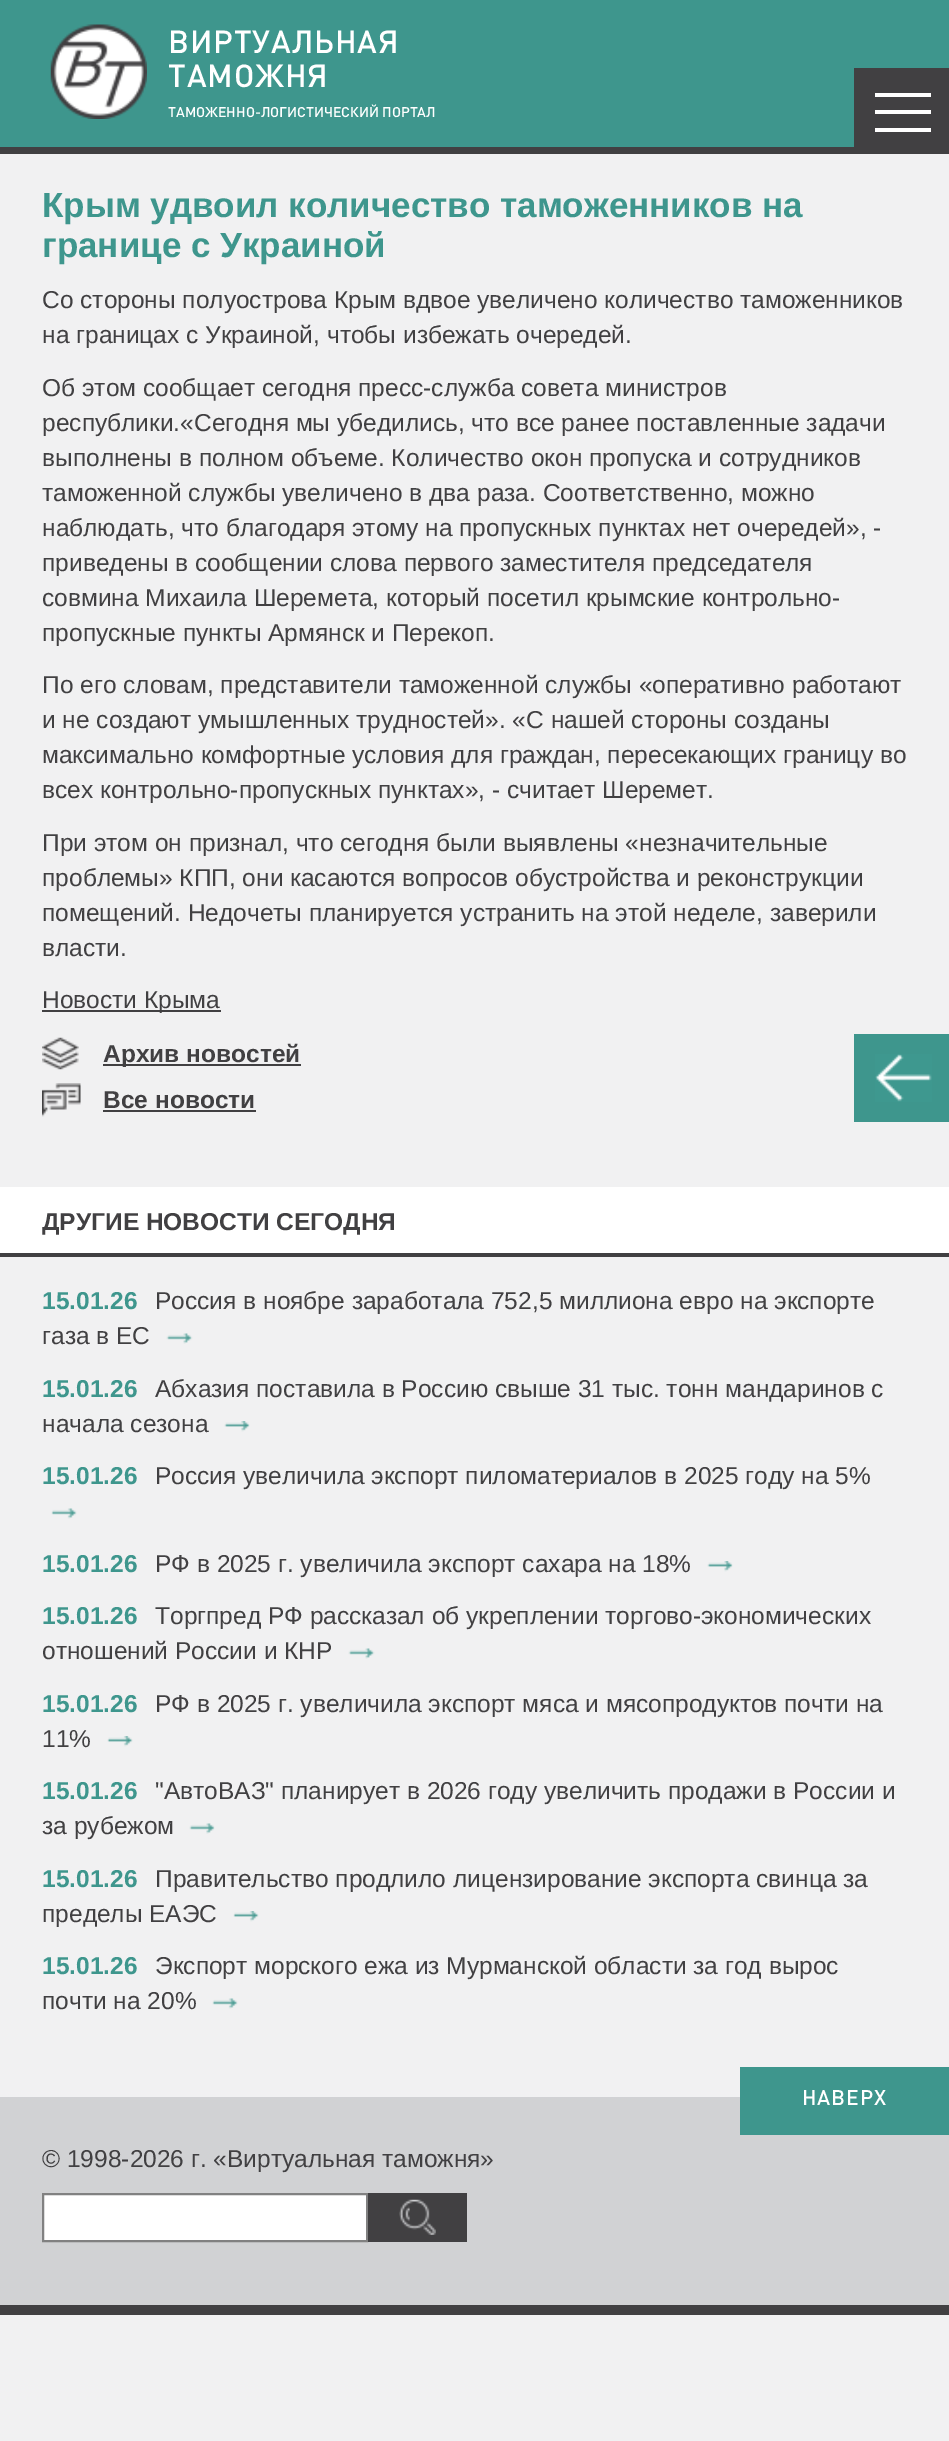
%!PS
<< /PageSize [949 2441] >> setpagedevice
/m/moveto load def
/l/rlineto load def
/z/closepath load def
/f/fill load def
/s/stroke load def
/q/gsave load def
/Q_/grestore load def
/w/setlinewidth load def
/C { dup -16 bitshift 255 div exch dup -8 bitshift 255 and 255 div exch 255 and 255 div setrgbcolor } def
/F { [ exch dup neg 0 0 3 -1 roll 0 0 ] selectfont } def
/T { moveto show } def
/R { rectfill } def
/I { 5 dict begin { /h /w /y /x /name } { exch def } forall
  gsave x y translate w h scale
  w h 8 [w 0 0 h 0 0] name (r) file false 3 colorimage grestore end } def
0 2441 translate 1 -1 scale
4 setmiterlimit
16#F1F1F2 C
0 0 949 2441 R
16#3E968D C
0 0 949 147 R
16#414042 C
0 147 949 7 R
(1.rgb) 50 24 97 95 I
/DIN-Medium 31.5 F
16#FFFFFF C
168 53 m .9 0 (ВИРТУАЛЬНАЯ) ashow
168 87 m .9 0 (ТАМОЖНЯ) ashow
/DIN-Medium 14 F
(ТАМОЖЕННО-ЛОГИСТИЧЕСКИЙ ПОРТАЛ) 168 117 T
16#414042 C
854 68 95 79 R
16#FFFFFF C
875 93 56 4 R
875 110 56 4 R
875 128 56 4 R
/LiberationSans-Bold 35 F
16#3E968D C
(Крым удвоил количество таможенников на) 42 217 T
(границе с Украиной) 42 257 T
/LiberationSans-Regular 24.5 F
16#414042 C
(Со стороны полуострова Крым вдвое увеличено количество таможенников) 42 308 T
(на границах с Украиной, чтобы избежать очередей.) 42 343 T
(Об этом сообщает сегодня пресс-служба совета министров) 42 396 T
(республики.«Сегодня мы убедились, что все ранее поставленные задачи) 42 431 T
(выполнены в полном объеме. Количество окон пропуска и сотрудников) 42 466 T
(таможенной службы увеличено в два раза. Соответственно, можно) 42 501 T
(наблюдать, что благодаря этому на пропускных пунктах нет очередей», -) 42 536 T
(приведены в сообщении слова первого заместителя председателя) 42 571 T
(совмина Михаила Шеремета, который посетил крымские контрольно-) 42 606 T
(пропускные пункты Армянск и Перекоп.) 42 641 T
(По его словам, представители таможенной службы «оперативно работают) 42 693 T
(и не создают умышленных трудностей». «С нашей стороны созданы) 42 728 T
(максимально комфортные условия для граждан, пересекающих границу во) 42 763 T
(всех контрольно-пропускных пунктах», - считает Шеремет.) 42 798 T
(При этом он признал, что сегодня были выявлены «незначительные) 42 851 T
(проблемы» КПП, они касаются вопросов обустройства и реконструкции) 42 886 T
(помещений. Недочеты планируется устранить на этой неделе, заверили) 42 921 T
(власти.) 42 956 T
42 1010 179 2 R
(Новости Крыма) 42 1008 T
(2.rgb) 42 1037 37 33 I
103 1064 198 2 R
/LiberationSans-Bold 24.5 F
(Архив новостей) 103 1062 T
(3.rgb) 42 1083 39 34 I
(Все новости) 103 1108 T
103 1110 153 2 R
16#3E968D C
854 1034 95 88 R
(4.rgb) 875 1054 57 48 I
16#FFFFFF C
0 1187 949 66 R
16#414042 C
0 1253 949 4 R
(ДРУГИЕ НОВОСТИ СЕГОДНЯ) 42 1230 T
16#3E968D C
(15.01.26) 42 1309 T
/LiberationSans-Regular 24.5 F
16#414042 C
(Россия в ноябре заработала 752,5 миллиона евро на экспорте) 155 1309 T
(газа в ЕС) 42 1344 T
(5.rgb) 166 1333 27 11 I
/LiberationSans-Bold 24.5 F
16#3E968D C
(15.01.26) 42 1397 T
/LiberationSans-Regular 24.5 F
16#414042 C
(Абхазия поставила в Россию свыше 31 тыс. тонн мандаринов с) 155 1397 T
(начала сезона) 42 1432 T
(6.rgb) 224 1421 26 11 I
/LiberationSans-Bold 24.5 F
16#3E968D C
(15.01.26) 42 1484 T
/LiberationSans-Regular 24.5 F
16#414042 C
(Россия увеличила экспорт пиломатериалов в 2025 году на 5%) 155 1484 T
(7.rgb) 51 1508 26 11 I
/LiberationSans-Bold 24.5 F
16#3E968D C
(15.01.26) 42 1572 T
/LiberationSans-Regular 24.5 F
16#414042 C
(РФ в 2025 г. увеличила экспорт сахара на 18%) 155 1572 T
(8.rgb) 707 1561 26 11 I
/LiberationSans-Bold 24.5 F
16#3E968D C
(15.01.26) 42 1624 T
/LiberationSans-Regular 24.5 F
16#414042 C
(Торгпред РФ рассказал об укреплении торгово-экономических) 155 1624 T
(отношений России и КНР) 42 1659 T
(9.rgb) 348 1648 27 11 I
/LiberationSans-Bold 24.5 F
16#3E968D C
(15.01.26) 42 1712 T
/LiberationSans-Regular 24.5 F
16#414042 C
(РФ в 2025 г. увеличила экспорт мяса и мясопродуктов почти на) 155 1712 T
(11%) 42 1747 T
(10.rgb) 107 1736 26 11 I
("АвтоВАЗ" планирует в 2026 году увеличить продажи в России и) 155 1799 T
(за рубежом) 42 1834 T
(11.rgb) 189 1823 26 11 I
/LiberationSans-Bold 24.5 F
16#3E968D C
(15.01.26) 42 1799 T
(15.01.26) 42 1887 T
/LiberationSans-Regular 24.5 F
16#414042 C
(Правительство продлило лицензирование экспорта свинца за) 155 1887 T
(пределы ЕАЭС) 42 1922 T
(12.rgb) 233 1911 26 11 I
(Экспорт морского ежа из Мурманской области за год вырос) 155 1974 T
(почти на 20%) 42 2009 T
(13.rgb) 212 1998 26 11 I
/LiberationSans-Bold 24.5 F
16#3E968D C
(15.01.26) 42 1974 T
16#D1D2D4 C
0 2097 949 208 R
16#414042 C
0 2305 949 10 R
16#3E968D C
740 2067 209 68 R
/DIN-Medium 21 F
16#FFFFFF C
802 2105 m .9 0 (НАВЕРХ) ashow
/LiberationSans-Regular 24.5 F
16#414042 C
(© 1998-2026 г. «Виртуальная таможня») 42 2167 T
16#FFFFFF C
43 2194 m 324 0 l 0 47 l -324 0 l z q f Q_
16#818181 C
2 w
s
16#414042 C
368 2193 99 49 R
(14.rgb) 399 2199 37 36 I
showpage
